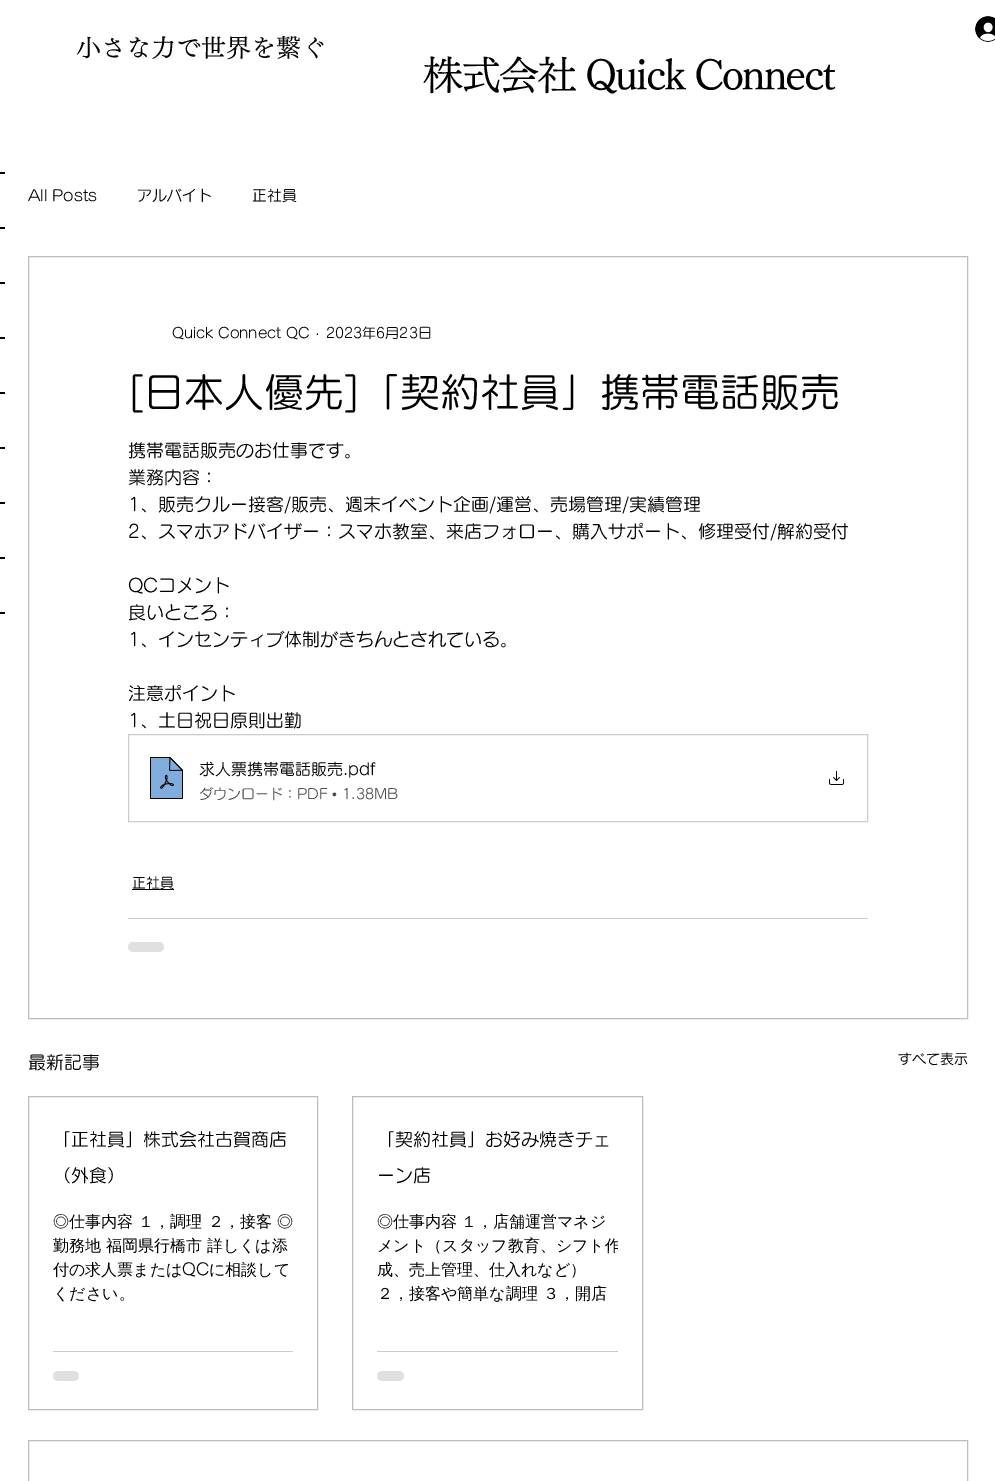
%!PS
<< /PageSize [995 1481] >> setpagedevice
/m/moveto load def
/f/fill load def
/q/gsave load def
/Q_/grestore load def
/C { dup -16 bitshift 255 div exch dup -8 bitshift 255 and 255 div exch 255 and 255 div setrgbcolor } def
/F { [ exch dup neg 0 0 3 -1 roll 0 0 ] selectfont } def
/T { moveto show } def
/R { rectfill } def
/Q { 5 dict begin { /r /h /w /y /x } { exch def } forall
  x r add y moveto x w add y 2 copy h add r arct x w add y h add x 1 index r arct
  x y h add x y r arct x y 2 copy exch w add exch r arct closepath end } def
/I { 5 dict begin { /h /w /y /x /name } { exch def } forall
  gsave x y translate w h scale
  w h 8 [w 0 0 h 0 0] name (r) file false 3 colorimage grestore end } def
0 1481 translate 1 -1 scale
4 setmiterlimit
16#FFFFFF C
0 0 995 1481 R
(1.rgb) 975 16 20 26 I
/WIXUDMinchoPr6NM-Medium 25 F
16#000000 C
(小さな力で世界を繋ぐ) 76 57 T
/WIXUDMinchoPr6NM-Medium 40 F
423 90 m -2 0 (株式会社 Quick Connect) ashow
0 172 5 2 R
0 612 5 2 R
0 227 5 2 R
0 282 5 2 R
0 337 5 2 R
0 392 5 2 R
0 447 5 2 R
0 502 5 2 R
0 557 5 2 R
/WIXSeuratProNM-Medium 15 F
(All Posts) 28 201 T
(アルバイト) 137 201 T
(正社員) 252 201 T
16#BDBDBC C
28.5 256.5 939 762 rectstroke
/WIXSeuratProNM-Medium 14 F
16#000000 C
(Quick Connect QC) 172 338 T
/LiberationSans-Regular 14 F
(·) 315 338 T
/WIXSeuratProNM-Medium 14 F
(2023年6月23日) 326 338 T
/WIXSeuratProNM-Medium 40 F
([日本人優先]「契約社員」携帯電話販売) 128 407 T
/WIXSeuratProNM-Medium 18 F
(携帯電話販売のお仕事です。) 128 457 T
(業務内容：) 128 484 T
(1、販売クルー接客/販売、週末イベント企画/運営、売場管理/実績管理) 128 511 T
(2、スマホアドバイザー：スマホ教室、来店フォロー、購入サポート、修理受付/解約受付) 128 538 T
(QCコメント) 128 592 T
(良いところ：) 128 619 T
(1、インセンティブ体制がきちんとされている。) 128 646 T
(注意ポイント) 128 700 T
(1、土日祝日原則出勤) 128 727 T
16#CCCCCC C
128.5 734.5 739 87 rectstroke
(2.rgb) 150 757 33 42 I
/WIXSeuratProNM-Medium 16 F
16#000000 C
(求人票携帯電話販売) 199 775 T
(.pdf) 343 775 T
/WIXSeuratProNM-Medium 14 F
16#4D4D4D C
(ダウンロード：PDF) 199 799 T
/LiberationSans-Regular 14 F
(•) 332 799 T
/WIXSeuratProNM-Medium 14 F
(1.38MB) 342 799 T
(3.rgb) 829 771 15 14 I
16#000000 C
132 889 42 1 R
(正社員) 132 888 T
16#CCCCCC C
128 918 740 1 R
16#E0E0E0 C
128 942 36 10 5 Q f
/WIXSeuratProNM-Medium 18 F
16#000000 C
(最新記事) 28 1069 T
/WIXSeuratProNM-Medium 14 F
(すべて表示) 898 1064 T
16#BDBDBC C
28.5 1096.5 289 313 rectstroke
/WIXSeuratProNM-Medium 18 F
16#000000 C
(「正社員」株式会社古賀商店) 53 1146 T
(（外食）) 53 1182 T
/WenQuanYiZenHei-Medium 16 F
53 1227 m .5 0 32 (◎仕事内容 １，調理 ２，接客 ◎) widthshow
(勤務地 福岡県行橋市 詳しくは添) 53 1251 T
(付の求人票または) 53 1275 T
/WIXSeuratProNM-Medium 16 F
(QC) 182 1275 T
/WenQuanYiZenHei-Medium 16 F
(に相談して) 209 1275 T
(ください。) 53 1299 T
16#CCCCCC C
53 1351 240 1 R
16#E0E0E0 C
53 1371 26 10 5 Q f
16#BDBDBC C
352.5 1096.5 290 313 rectstroke
/WIXSeuratProNM-Medium 18 F
16#000000 C
(「契約社員」お好み焼きチェ) 377 1146 T
(ーン店) 377 1182 T
/WenQuanYiZenHei-Medium 16 F
377 1227 m -1 0 32 (◎仕事内容 １，店舗運営マネジ) widthshow
q
377 1209 241 96 rectclip
(メント（スタッフ教育、シフト作) 377 1251 T
Q_
(成、売上管理、仕入れなど）) 377 1275 T
(２，接客や簡単な調理 ３，開店) 377 1299 T
16#CCCCCC C
377 1351 241 1 R
16#E0E0E0 C
377 1371 27 10 5 Q f
16#BDBDBC C
28.5 1440.5 939 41 rectstroke
showpage
